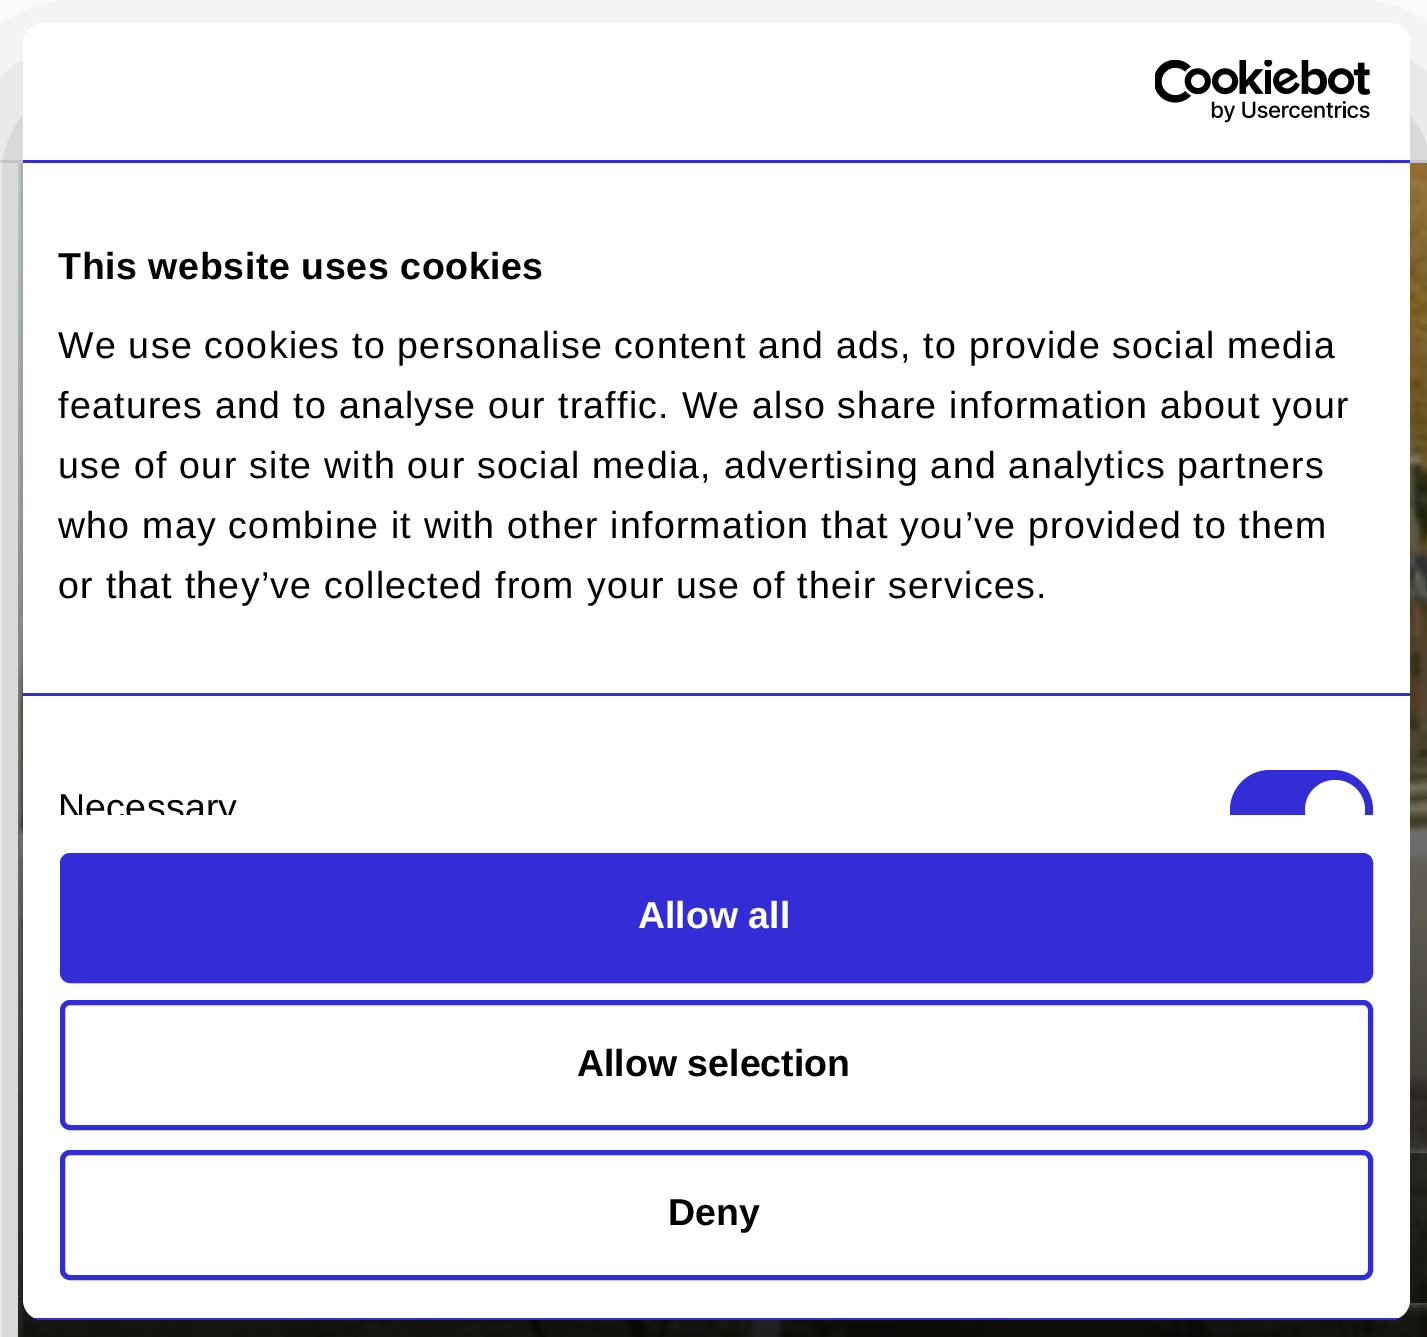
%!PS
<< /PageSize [1427 1337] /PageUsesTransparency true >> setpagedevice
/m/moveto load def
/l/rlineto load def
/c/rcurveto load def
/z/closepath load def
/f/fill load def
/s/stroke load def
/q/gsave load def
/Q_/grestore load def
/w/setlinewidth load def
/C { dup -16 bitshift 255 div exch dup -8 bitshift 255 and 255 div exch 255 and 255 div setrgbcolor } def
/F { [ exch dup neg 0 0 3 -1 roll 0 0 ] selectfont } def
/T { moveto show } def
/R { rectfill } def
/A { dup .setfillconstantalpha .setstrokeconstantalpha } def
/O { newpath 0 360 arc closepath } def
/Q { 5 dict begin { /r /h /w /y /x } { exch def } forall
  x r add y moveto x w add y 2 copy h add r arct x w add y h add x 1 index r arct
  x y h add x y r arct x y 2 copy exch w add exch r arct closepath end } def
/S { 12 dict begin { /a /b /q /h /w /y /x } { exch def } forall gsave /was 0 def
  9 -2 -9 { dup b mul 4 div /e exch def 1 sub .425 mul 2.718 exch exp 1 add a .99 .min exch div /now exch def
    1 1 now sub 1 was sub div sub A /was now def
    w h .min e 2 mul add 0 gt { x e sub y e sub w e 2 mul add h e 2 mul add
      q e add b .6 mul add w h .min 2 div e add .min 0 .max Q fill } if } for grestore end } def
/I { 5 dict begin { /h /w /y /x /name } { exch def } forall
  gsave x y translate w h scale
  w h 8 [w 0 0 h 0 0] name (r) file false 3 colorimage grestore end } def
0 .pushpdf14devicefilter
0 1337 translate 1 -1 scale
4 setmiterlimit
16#FFFFFF C
0 0 1427 1337 R
16#E6E6E6 C
0 160 1427 3 R
(1.rgb) 18 163 1409 1174 I
q
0 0 m 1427 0 l 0 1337 l -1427 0 l z 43 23 m 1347 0 l 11 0 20 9 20 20 c 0 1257 l 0 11 -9 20 -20 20 c -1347 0 l -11 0 -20 -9 -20 -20 c 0 -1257 l 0 -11 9 -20 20 -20 c z eoclip newpath
16#000000 C
23 103 1387 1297 20 85 .3 S
Q_
q
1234 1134 m 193 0 l 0 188 l -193 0 l z 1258 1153 m 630 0 l 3 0 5 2 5 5 c 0 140 l 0 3 -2 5 -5 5 c -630 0 l -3 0 -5 -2 -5 -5 c 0 -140 l 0 -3 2 -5 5 -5 c z eoclip newpath
16#808080 C
1253 1153 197 150 5 6 1 S
Q_
16#FFFFFF C
23 23 1387 1297 20 Q f
16#322DD7 C
23 160 1387 3 R
(2.rgb) 1155 60 216 63 I
23 693 1387 3 R
/LiberationSans-Bold 37.5 F
16#000000 C
58 279 m .6 0 (This website uses cookies) ashow
/LiberationSans-Regular 37.5 F
58 358 m 1.25 0 (We use cookies to personalise content and ads, to provide social media) ashow
58 418 m 1.25 0 (features and to analyse our traffic. We also share information about your) ashow
58 478 m 1.25 0 (use of our site with our social media, advertising and analytics partners) ashow
58 538 m 1.25 0 (who may combine it with other information that you’ve provided to them) ashow
58 598 m 1.25 0 (or that they’ve collected from your use of their services.) ashow
q
23 163 1387 652 rectclip
58 820 m .25 0 (Necessary) ashow
16#322DD7 C
1230 770 143 80 40 Q f
16#FFFFFF C
1335 810 30 O f
Q_
q
23 23 1387 1297 20 Q clip newpath
16#322DD7 C
34 1318 1365 2 R
Q_
16#322DD7 C
62.5 855.5 1308 125 7.5 Q q f Q_
5 w
s
/LiberationSans-Bold 37.5 F
16#FFFFFF C
(Allow all) 638 928 T
16#322DD7 C
62.5 1002.5 1308 125 7.5 Q s
16#000000 C
(Allow selection) 577 1076 T
16#322DD7 C
62.5 1152.5 1308 125 7.5 Q s
16#000000 C
(Deny) 668 1225 T
.poppdf14devicefilter showpage
